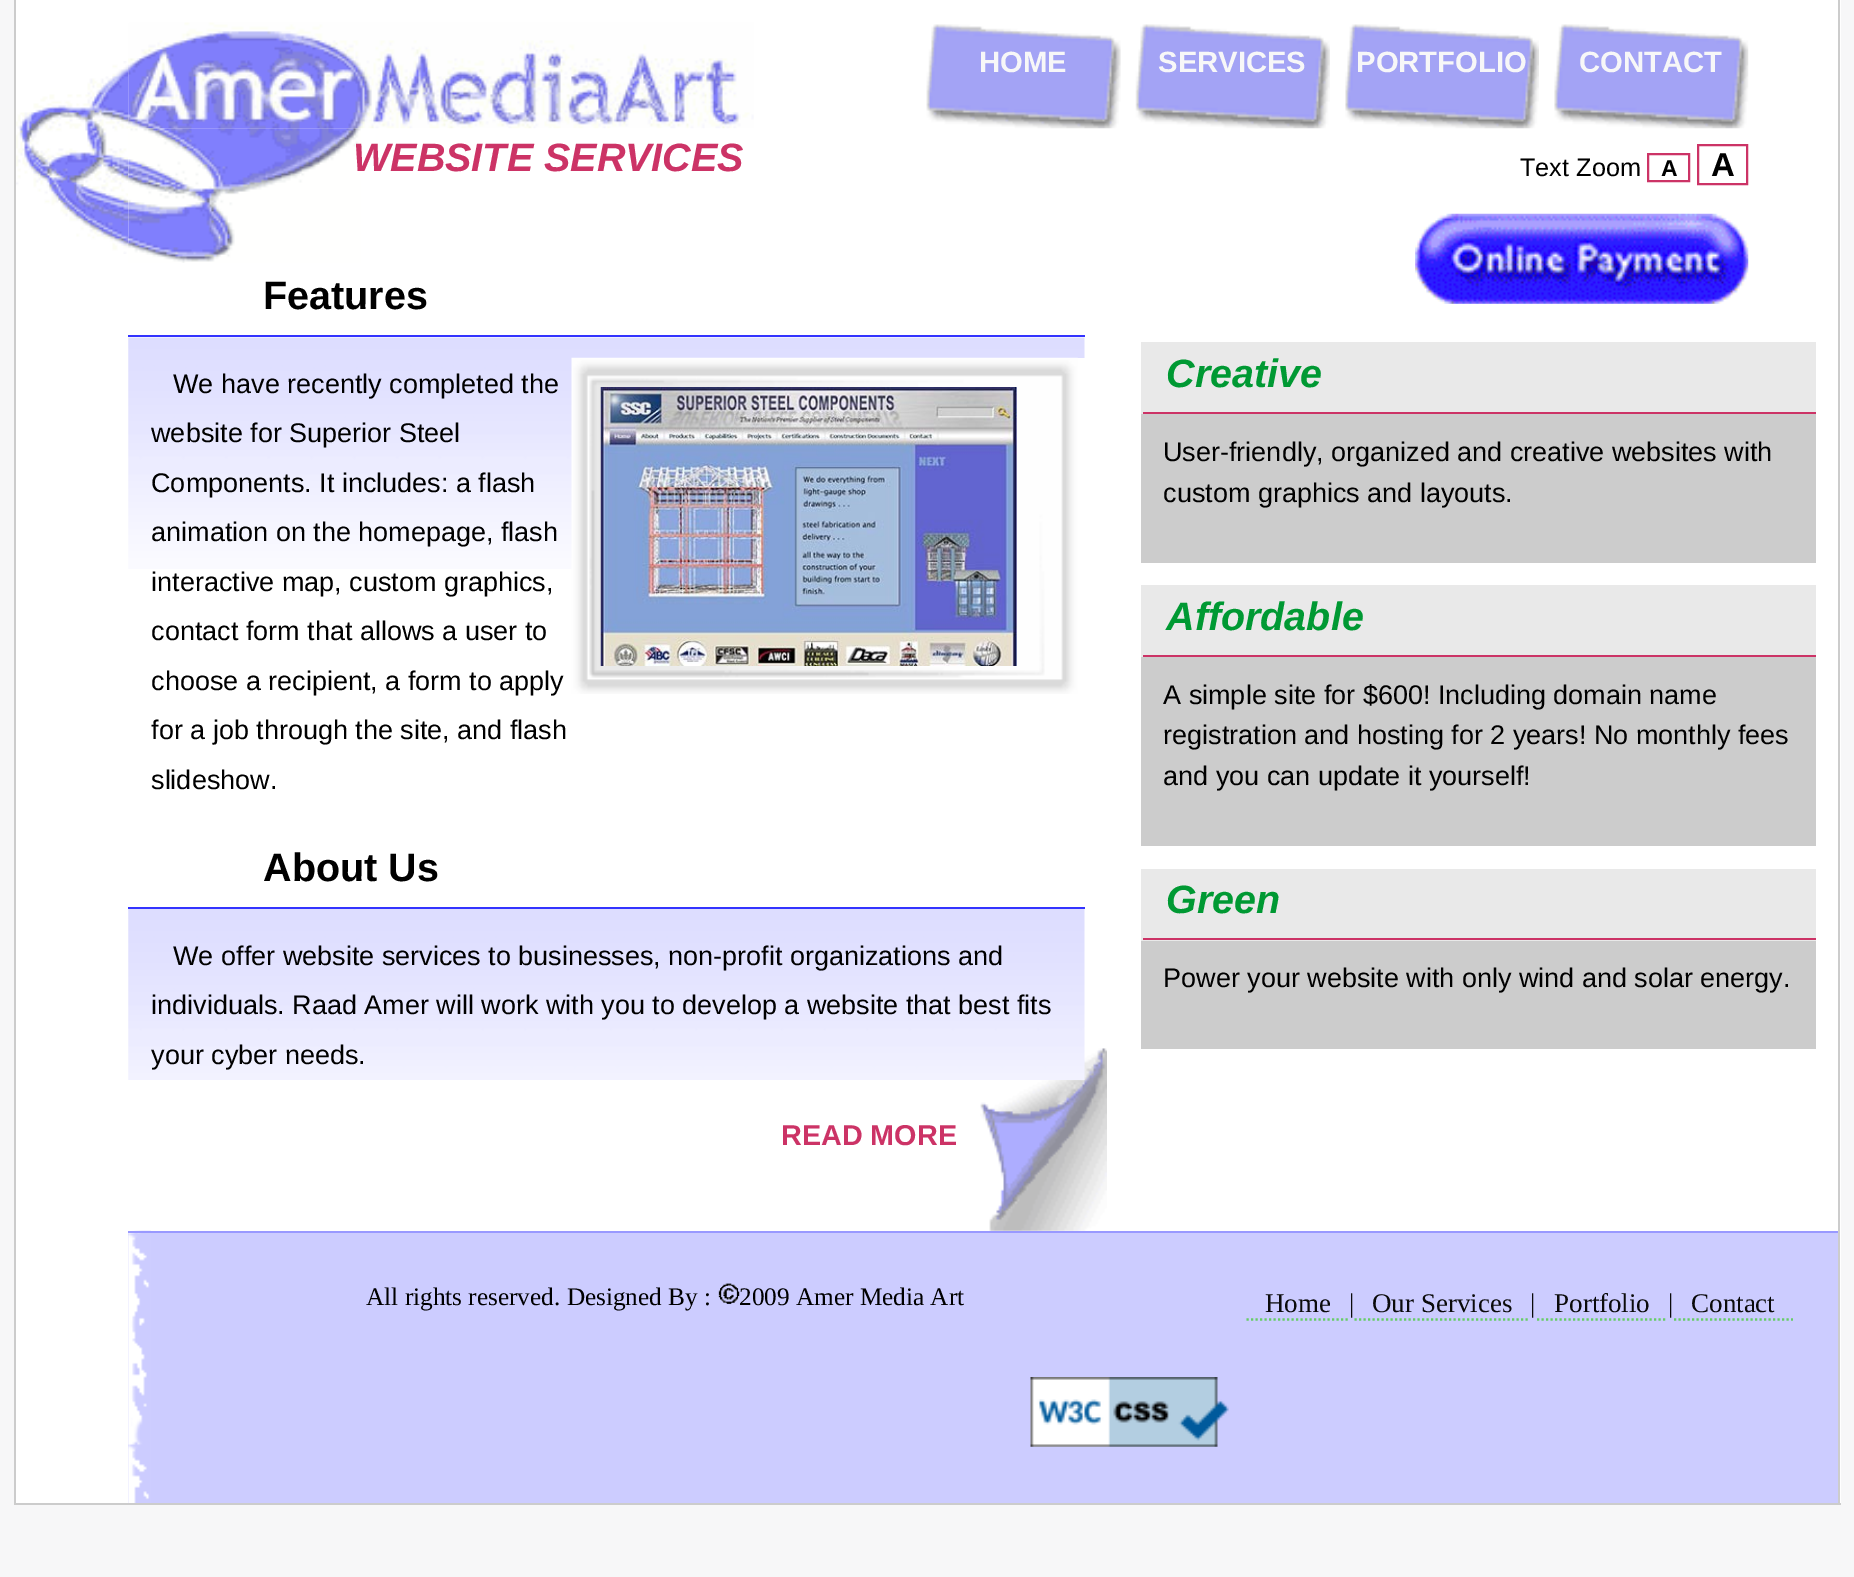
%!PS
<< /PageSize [1854 1577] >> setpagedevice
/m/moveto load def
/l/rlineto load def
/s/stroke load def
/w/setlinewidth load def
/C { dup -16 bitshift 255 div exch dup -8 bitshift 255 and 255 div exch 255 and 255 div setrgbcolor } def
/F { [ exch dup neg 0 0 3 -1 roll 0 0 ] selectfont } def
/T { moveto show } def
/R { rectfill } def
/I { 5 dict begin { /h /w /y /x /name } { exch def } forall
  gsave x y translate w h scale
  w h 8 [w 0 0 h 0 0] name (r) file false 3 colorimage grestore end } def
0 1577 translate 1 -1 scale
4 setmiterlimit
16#F7F7F8 C
0 0 1854 1577 R
16#FFFFFF C
16 0 1825 1503 R
(1.rgb) 16 61 113 193 I
16#CCCCCC C
1838 0 2 1505 R
14 1503 1827 2 R
14 0 2 1505 R
16#FFFFFF C
128 158 1 88 R
(7.rgb) 128 128 233 135 I
(2.rgb) 128 22 626 107 I
(3.rgb) 926 24 195 105 I
/LiberationSans-Bold 29.25 F
16#F7F7F8 C
(HOME) 979 72 T
(4.rgb) 1135 24 195 105 I
(SERVICES) 1158 72 T
(5.rgb) 1345 24 194 105 I
(PORTFOLIO) 1356 72 T
(6.rgb) 1554 24 195 105 I
(CONTACT) 1579 72 T
/LiberationSans-BoldItalic 39.5 F
16#CC3366 C
(WEBSITE SERVICES) 353 171 T
/LiberationSans-Bold 39.5 F
16#000000 C
(Features) 263 309 T
(8.rgb) 128 337 957 232 I
16#3333FF C
128 335 957 2 R
/LiberationSans-Regular 27 F
16#000000 C
(We have recently completed the) 173 393 T
(website for Superior Steel) 151 442 T
(Components. It includes: a flash) 151 492 T
(animation on the homepage, flash) 151 541 T
(interactive map, custom graphics,) 151 591 T
(contact form that allows a user to) 151 640 T
(choose a recipient, a form to apply) 151 690 T
(for a job through the site, and flash) 151 739 T
(slideshow.) 151 789 T
16#FFFFFF C
572 358 513 211 R
(9.rgb) 571 357 507 337 I
(10.rgb) 600 387 417 279 I
(11.rgb) 980 1048 127 183 I
/LiberationSans-Bold 39.5 F
16#000000 C
(About Us) 263 881 T
(12.rgb) 128 909 957 171 I
16#3333FF C
128 907 957 2 R
/LiberationSans-Regular 27 F
16#000000 C
(We offer website services to businesses, non-profit organizations and) 173 965 T
(individuals. Raad Amer will work with you to develop a website that best fits) 151 1014 T
(your cyber needs.) 151 1064 T
/LiberationSans-Bold 28.75 F
16#CC3366 C
(READ MORE) 781 1145 T
/LiberationSans-Regular 25.25 F
16#000000 C
(Text Zoom) 1520 176 T
16#CC3366 C
2 w
1648 154 41 27 rectstroke
/LiberationSans-Bold 23 F
16#000000 C
(A) 1661 176 T
16#CC3366 C
1698 145 49 39 rectstroke
/LiberationSans-Bold 33 F
16#000000 C
(A) 1711 176 T
(13.rgb) 1415 213 334 91 I
16#CCCCCC C
1141 414 675 149 R
16#E9E9E9 C
1143 342 673 70 R
16#CC3366 C
1141 412 675 2 R
16#E9E9E9 C
1141 342 2 72 R
/LiberationSans-BoldItalic 39.5 F
16#009933 C
(Creative) 1166 387 T
/LiberationSans-Regular 27 F
16#000000 C
(User-friendly, organized and creative websites with) 1163 461 T
(custom graphics and layouts.) 1163 502 T
16#CCCCCC C
1141 657 675 189 R
16#E9E9E9 C
1143 585 673 70 R
16#CC3366 C
1141 655 675 2 R
16#E9E9E9 C
1141 585 2 72 R
/LiberationSans-BoldItalic 39.5 F
16#009933 C
(Affordable) 1166 630 T
/LiberationSans-Regular 27 F
16#000000 C
(A simple site for $600! Including domain name) 1163 704 T
(registration and hosting for 2 years! No monthly fees) 1163 744 T
(and you can update it yourself!) 1163 785 T
16#CCCCCC C
1141 941 675 108 R
16#E9E9E9 C
1143 869 673 72 R
16#CC3366 C
1141 938 675 2 R
16#E9E9E9 C
1141 869 2 72 R
/LiberationSans-BoldItalic 39.5 F
16#009933 C
(Green) 1166 913 T
/LiberationSans-Regular 27 F
16#000000 C
(Power your website with only wind and solar energy.) 1163 987 T
16#CCCCFF C
128 1233 1710 270 R
(14.rgb) 128 1230 23 273 I
16#9999FF C
128 1231 1710 2 R
/LiberationSerif-Regular 25.25 F
16#000000 C
(All rights reserved. Designed By :) 366 1305 T
(15.rgb) 718 1283 22 21 I
(2009 Amer Media Art) 739 1305 T
/LiberationSerif-Regular 27 F
16#0B0B0B C
(Home) 1265 1312 T
16#66CC66 C
2.2 w
[2.25 2.25] 0 setdash
1246.5 1319.5 m 101.5 0 l s
16#0B0B0B C
(|) 1349 1312 T
(Our Services) 1372 1312 T
16#66CC66 C
1354.5 1319.5 m 175.5 0 l s
16#0B0B0B C
(|) 1530 1312 T
(Portfolio) 1554 1312 T
16#66CC66 C
1537 1319.5 m 130 0 l s
16#0B0B0B C
(|) 1668 1312 T
(Contact) 1691 1312 T
16#66CC66 C
1674 1319.5 m 119 0 l s
(16.rgb) 1030 1377 199 70 I
showpage
